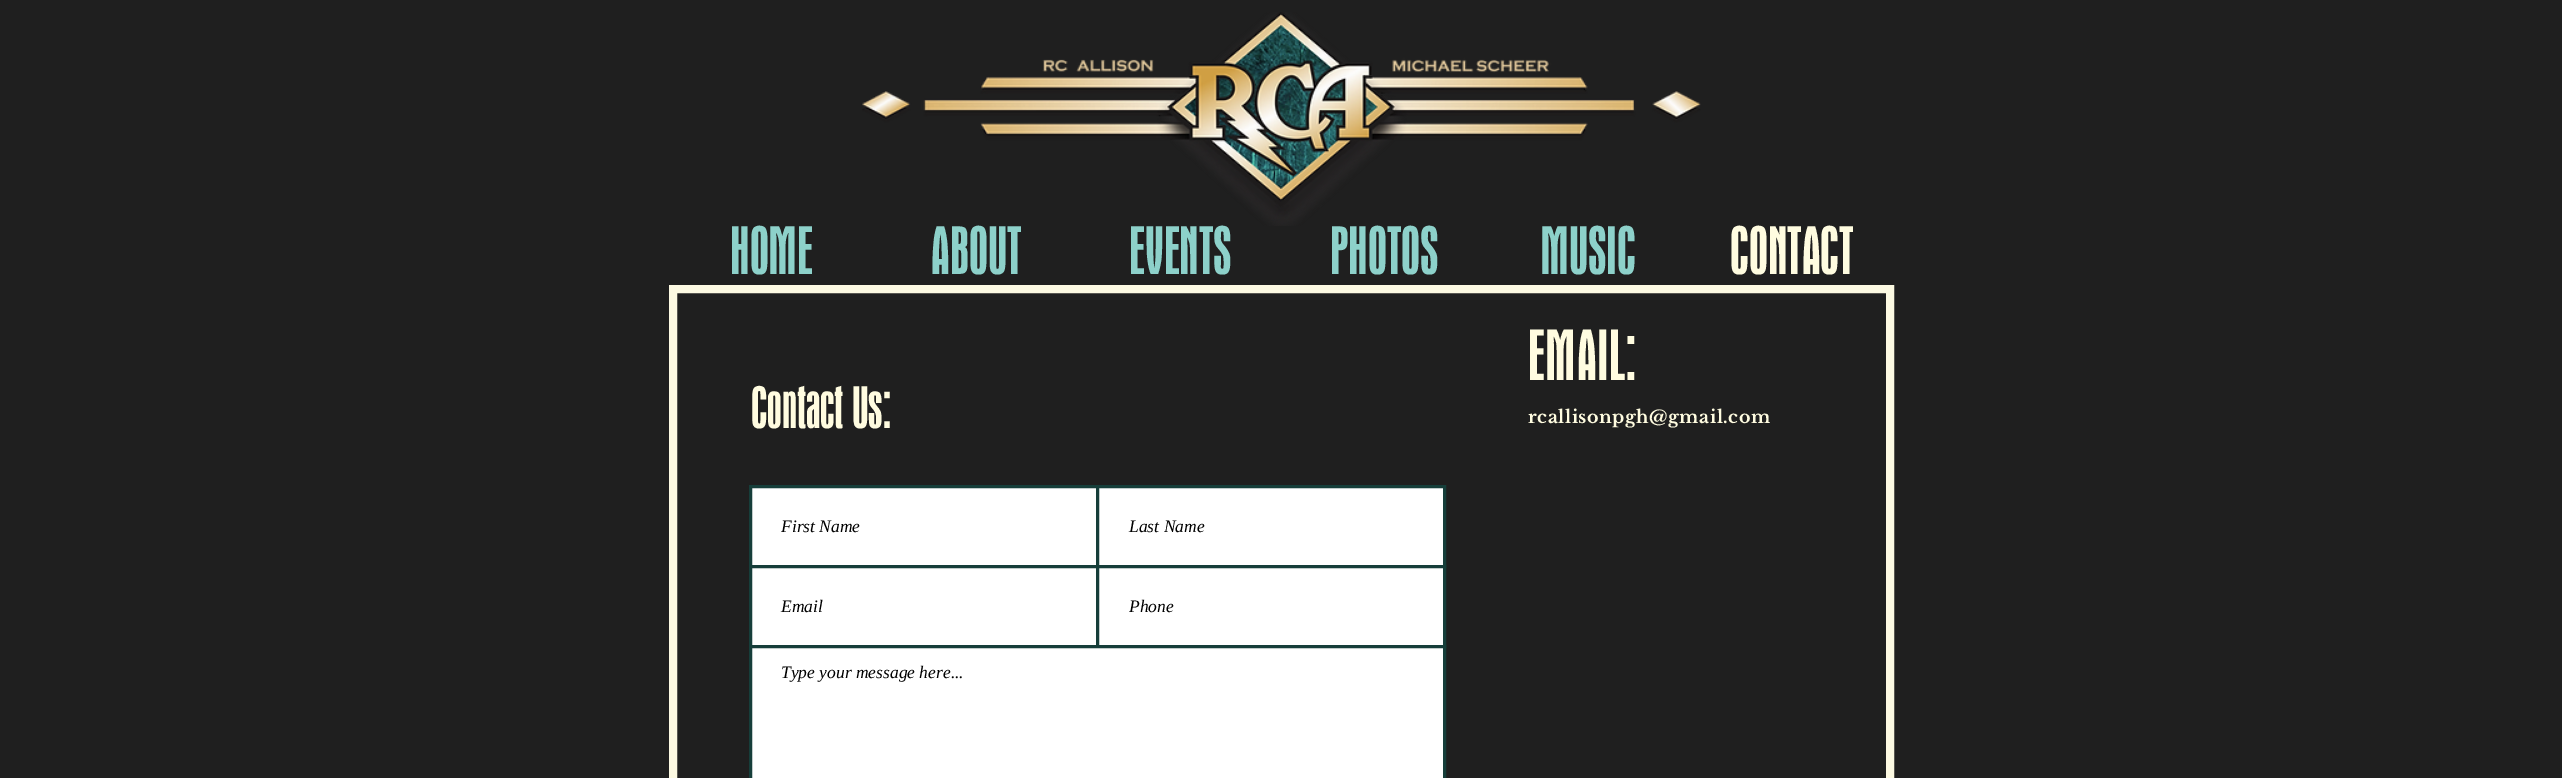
%!PS
<< /PageSize [2562 778] >> setpagedevice
/m/moveto load def
/l/rlineto load def
/z/closepath load def
/f/fill load def
/s/stroke load def
/q/gsave load def
/Q_/grestore load def
/w/setlinewidth load def
/C { dup -16 bitshift 255 div exch dup -8 bitshift 255 and 255 div exch 255 and 255 div setrgbcolor } def
/F { [ exch dup neg 0 0 3 -1 roll 0 0 ] selectfont } def
/T { moveto show } def
/R { rectfill } def
/I { 5 dict begin { /h /w /y /x /name } { exch def } forall
  gsave x y translate w h scale
  w h 8 [w 0 0 h 0 0] name (r) file false 3 colorimage grestore end } def
0 778 translate 1 -1 scale
4 setmiterlimit
16#1F1F1F C
0 0 2562 778 R
(1.rgb) 862 12 839 214 I
/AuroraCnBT-Regular 70 F
16#8DD1CA C
(HOME) 730 274 T
(ABOUT) 931 274 T
(EVENTS) 1129 274 T
(PHOTOS) 1330 274 T
(MUSIC) 1540 274 T
16#FFFCE0 C
(CONTACT) 1730 274 T
16#FCF9E2 C
8 w
673 289 1217 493 rectstroke
/AuroraCnBT-Regular 74 F
16#FFFCE0 C
1528 380 m .75 0 (EMAIL:) ashow
/AuroraCnBT-Regular 61 F
(Contact Us:) 751 428 T
16#FFFFFF C
750.5 486.5 m 347 0 l 0 80 l -347 0 l z q f Q_
16#163E3A C
3 w
s
/LiberationSerif-Italic 17.5 F
16#000000 C
(First Name) 781 532 T
16#FFFFFF C
1097.5 486.5 m 347 0 l 0 80 l -347 0 l z q f Q_
16#163E3A C
s
16#000000 C
(Last Name) 1129 532 T
16#FFFFFF C
750.5 566.5 m 347 0 l 0 80 l -347 0 l z q f Q_
16#163E3A C
s
16#000000 C
(Email) 781 612 T
16#FFFFFF C
1097.5 566.5 m 347 0 l 0 80 l -347 0 l z q f Q_
16#163E3A C
s
16#000000 C
(Phone) 1129 612 T
16#FFFFFF C
750.5 646.5 m 694 0 l 0 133 l -694 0 l z q f Q_
16#163E3A C
s
16#000000 C
(Type your message here...) 781 678 T
/LibreBaskerville-Bold 17.5 F
16#FFFCE0 C
1528 423 m .5 0 (rcallisonpgh@gmail.com) ashow
showpage
